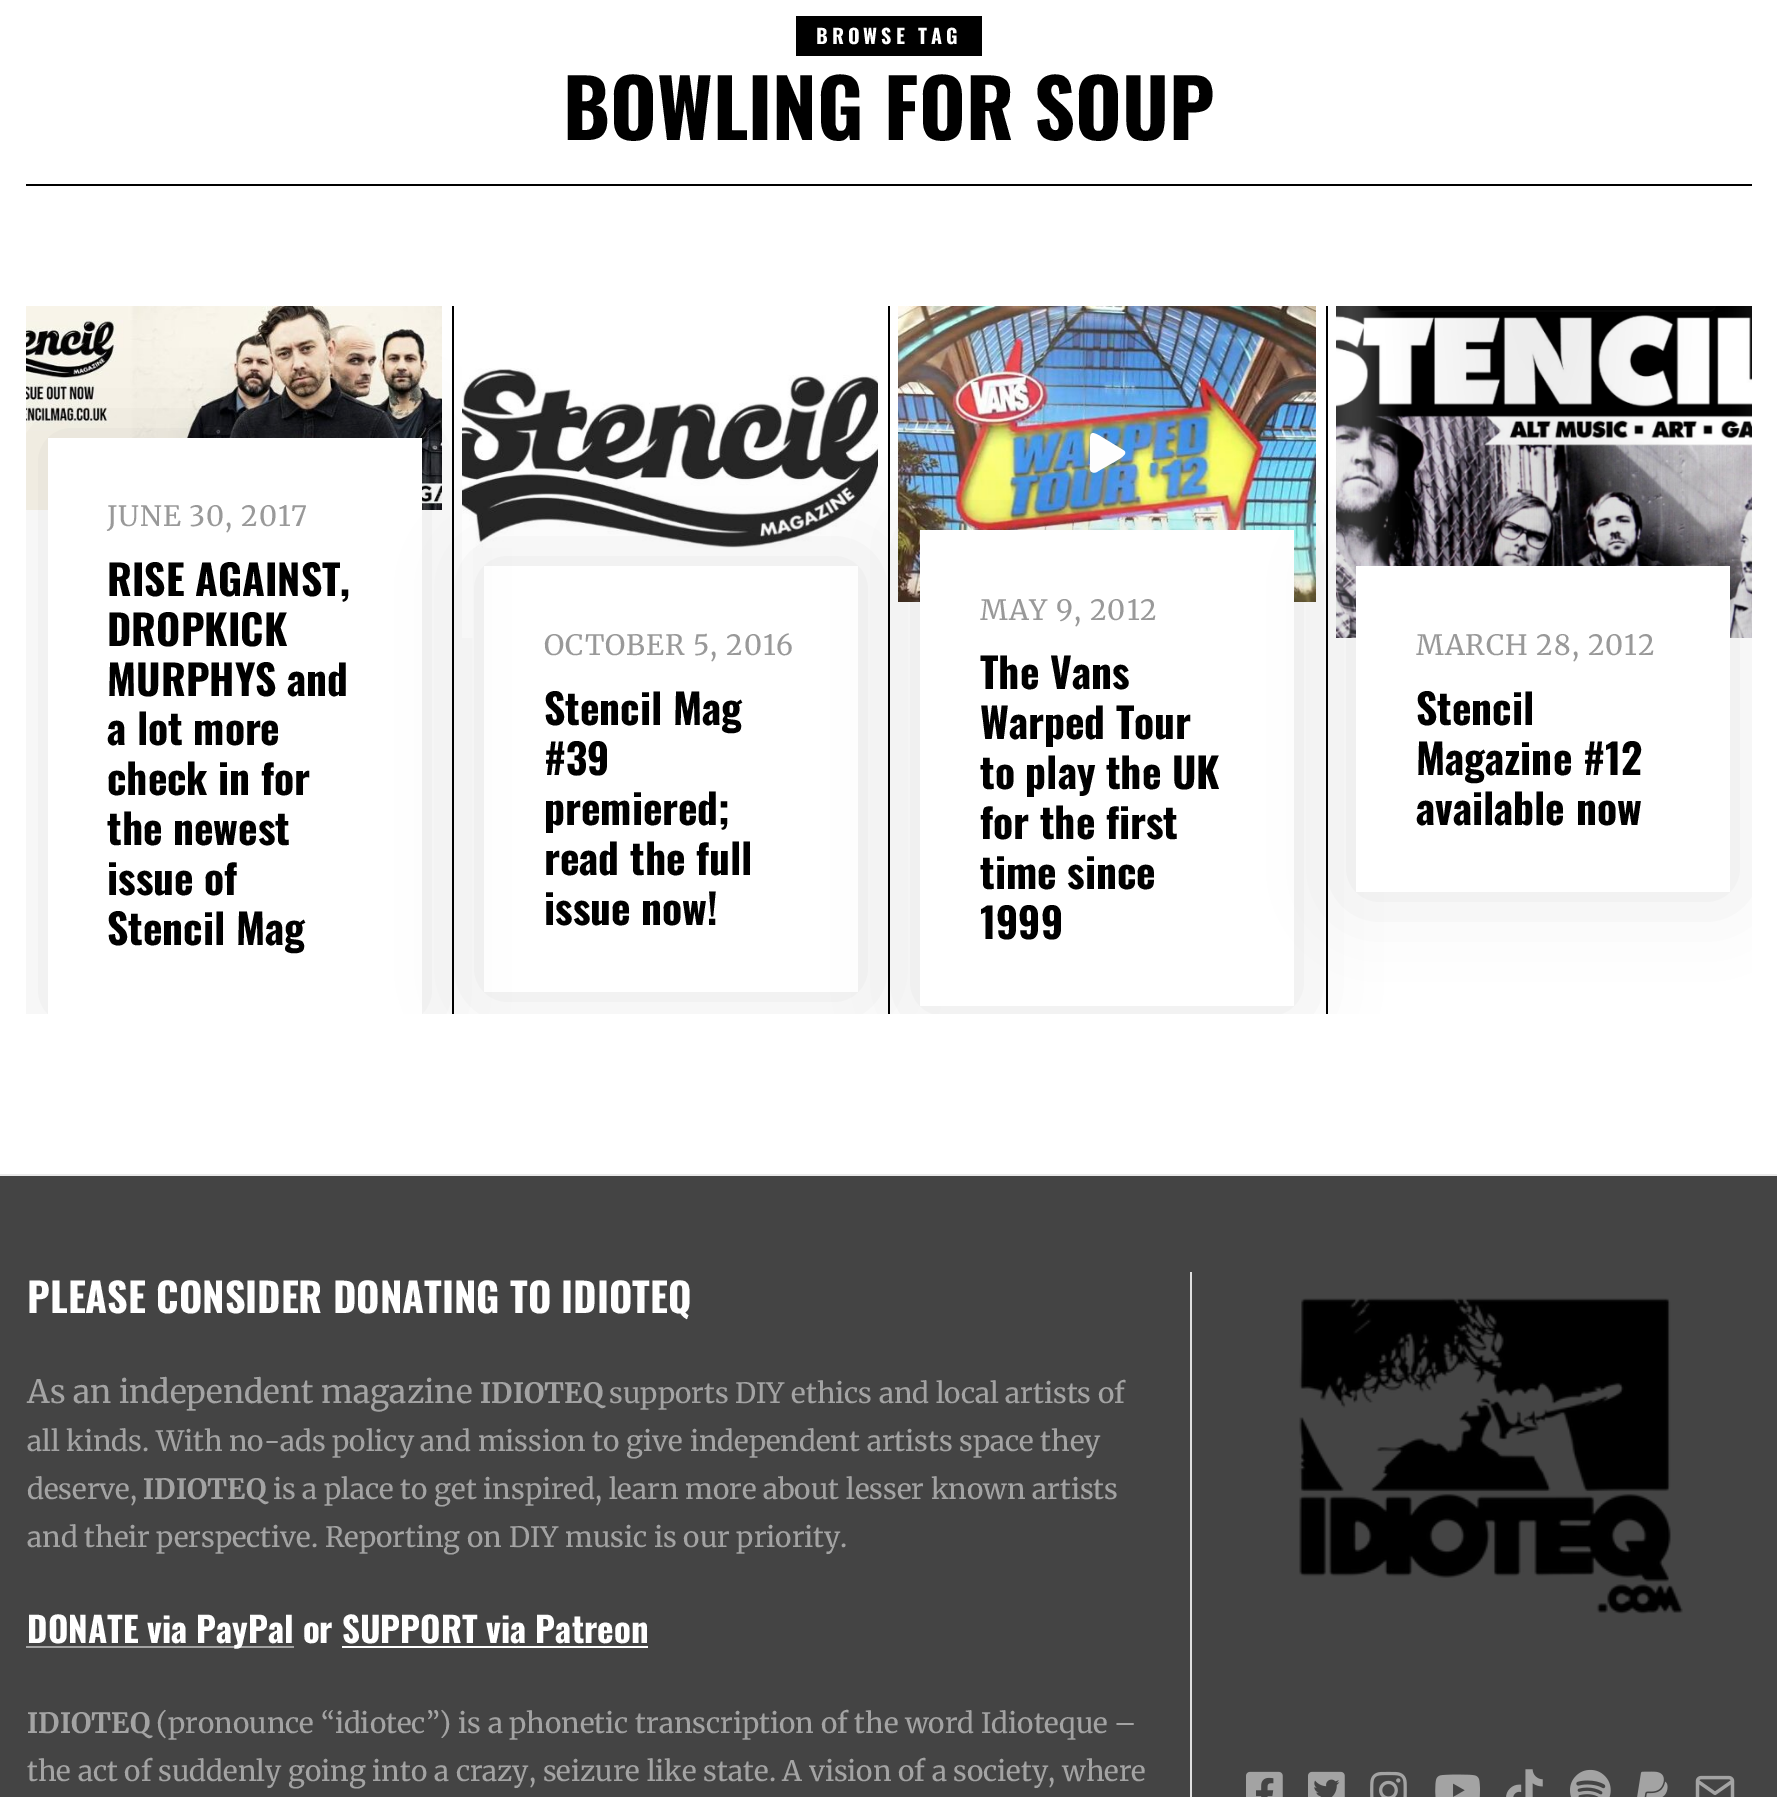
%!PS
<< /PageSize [1777 1797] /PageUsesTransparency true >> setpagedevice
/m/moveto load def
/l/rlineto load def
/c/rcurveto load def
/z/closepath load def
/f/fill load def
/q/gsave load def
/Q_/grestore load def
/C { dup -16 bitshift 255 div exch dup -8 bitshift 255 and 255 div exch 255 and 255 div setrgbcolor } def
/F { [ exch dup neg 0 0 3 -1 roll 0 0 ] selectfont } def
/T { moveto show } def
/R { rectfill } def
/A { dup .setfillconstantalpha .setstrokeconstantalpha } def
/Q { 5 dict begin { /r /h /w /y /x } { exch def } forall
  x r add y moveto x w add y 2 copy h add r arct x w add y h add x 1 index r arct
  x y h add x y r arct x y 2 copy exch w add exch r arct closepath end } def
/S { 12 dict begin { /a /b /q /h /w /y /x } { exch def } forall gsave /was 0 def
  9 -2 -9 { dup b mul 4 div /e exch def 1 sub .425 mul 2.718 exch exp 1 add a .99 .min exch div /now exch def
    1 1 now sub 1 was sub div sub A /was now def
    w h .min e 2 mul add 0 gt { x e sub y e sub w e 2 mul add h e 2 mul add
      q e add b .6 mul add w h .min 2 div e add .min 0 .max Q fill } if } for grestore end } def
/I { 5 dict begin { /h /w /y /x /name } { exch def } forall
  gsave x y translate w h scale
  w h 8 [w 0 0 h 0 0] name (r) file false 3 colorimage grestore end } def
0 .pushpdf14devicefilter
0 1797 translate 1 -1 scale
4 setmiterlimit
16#FFFFFF C
0 0 1777 1797 R
16#000000 C
26 184 1726 2 R
796 16 186 40 R
/Oswald-Bold 20 F
16#FFFFFF C
816 44 m 4 0 (BROWSE TAG) ashow
/Oswald-Bold 80 F
16#000000 C
(BOWLING FOR SOUP) 563 140 T
(1.rgb) 26 306 416 204 I
452 306 2 708 R
q
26 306 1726 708 rectclip
48 438 374 576 0 40 .1 S
Q_
16#FFFFFF C
48 438 374 576 R
/Merriweather-Regular 28 F
16#999999 C
107 526 m 1 0 (JUNE 30, 2017) ashow
/Oswald-Bold 41.5 F
16#000000 C
(RISE AGAINST,) 107 596 T
(DROPKICK) 107 646 T
(MURPHYS and) 107 696 T
(a lot more) 107 745 T
(check in for) 107 795 T
(the newest) 107 845 T
(issue of) 107 895 T
(Stencil Mag) 107 945 T
888 306 2 708 R
1326 306 2 708 R
16#FFFFFF C
462 453 11 185 R
(2.rgb) 462 368 416 180 I
q
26 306 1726 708 rectclip
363 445 m 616 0 l 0 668 l -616 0 l z 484 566 m 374 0 l 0 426 l -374 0 l z eoclip newpath
16#000000 C
484 566 374 426 0 40 .1 S
Q_
/Merriweather-Regular 28 F
16#999999 C
544 655 m 1 0 (OCTOBER 5, 2016) ashow
/Oswald-Bold 41.5 F
16#000000 C
(Stencil Mag) 544 725 T
(#39) 544 775 T
(premiered;) 544 825 T
(read the full) 544 875 T
(issue now!) 544 925 T
(3.rgb) 898 306 418 296 I
16#FFFFFF C
1123 450 m 8 4 -8 11 -9 12 c -14 8 l -2 1 -5 4 -8 2 c -3 -1 -2 -6 -2 -8 c 0 -22 l 0 -10 1 -11 10 -6 c z f
q
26 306 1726 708 rectclip
16#000000 C
920 530 374 476 0 40 .1 S
Q_
920 530 374 476 R
/Merriweather-Regular 28 F
16#999999 C
980 620 m 1 0 (MAY 9, 2012) ashow
/Oswald-Bold 41.5 F
16#000000 C
(The Vans) 980 689 T
(Warped Tour) 980 739 T
(to play the UK) 980 789 T
(for the first) 980 839 T
(time since) 980 889 T
(1999) 980 939 T
(4.rgb) 1336 306 416 332 I
q
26 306 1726 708 rectclip
1356 566 374 326 0 40 .1 S
Q_
16#FFFFFF C
1356 566 374 326 R
/Merriweather-Regular 28 F
16#999999 C
1416 655 m 1 0 (MARCH 28, 2012) ashow
/Oswald-Bold 41.5 F
16#000000 C
(Stencil) 1416 725 T
(Magazine #12) 1416 775 T
(available now) 1416 825 T
16#444444 C
0 1176 1777 621 R
16#EAEAEA C
0 1174 1777 2 R
/Oswald-Bold 40 F
16#FFFFFF C
(PLEASE CONSIDER DONATING TO IDIOTEQ) 27 1313 T
/Merriweather-Regular 32 F
16#A3A3A3 C
(As an independent magazine) 27 1403 T
/Merriweather-Bold 28 F
(IDIOTEQ) 480 1403 T
/Merriweather-Regular 28 F
(supports DIY ethics and local artists of) 609 1403 T
(all kinds. With no-ads policy and mission to give independent artists space they) 27 1451 T
(deserve,) 27 1499 T
/Merriweather-Bold 28 F
(IDIOTEQ) 143 1499 T
/Merriweather-Regular 28 F
(is a place to get inspired, learn more about lesser known artists) 273 1499 T
(and their perspective. Reporting on DIY music is our priority.) 27 1547 T
26 1646 268 2 R
/Oswald-Bold 35 F
16#FFFFFF C
(DONATE via PayPal or SUPPORT via Patreon) 27 1643 T
342 1646 306 2 R
/Merriweather-Bold 28 F
16#A3A3A3 C
(IDIOTEQ) 27 1733 T
/Merriweather-Regular 28 F
(\(pronounce “idiotec”\) is a phonetic transcription of the word Idioteque –) 156 1733 T
(the act of suddenly going into a crazy, seizure like state. A vision of a society, where) 27 1781 T
16#E0E0E0 C
1190 1272 2 525 R
(5.rgb) 1299 1298 384 316 I
(6.rgb) 1246 1771 37 26 I
(7.rgb) 1308 1771 37 26 I
(8.rgb) 1370 1771 37 26 I
(9.rgb) 1435 1774 45 23 I
(10.rgb) 1506 1769 37 28 I
(11.rgb) 1570 1769 41 28 I
(12.rgb) 1637 1771 31 26 I
(13.rgb) 1695 1775 40 22 I
.poppdf14devicefilter showpage
